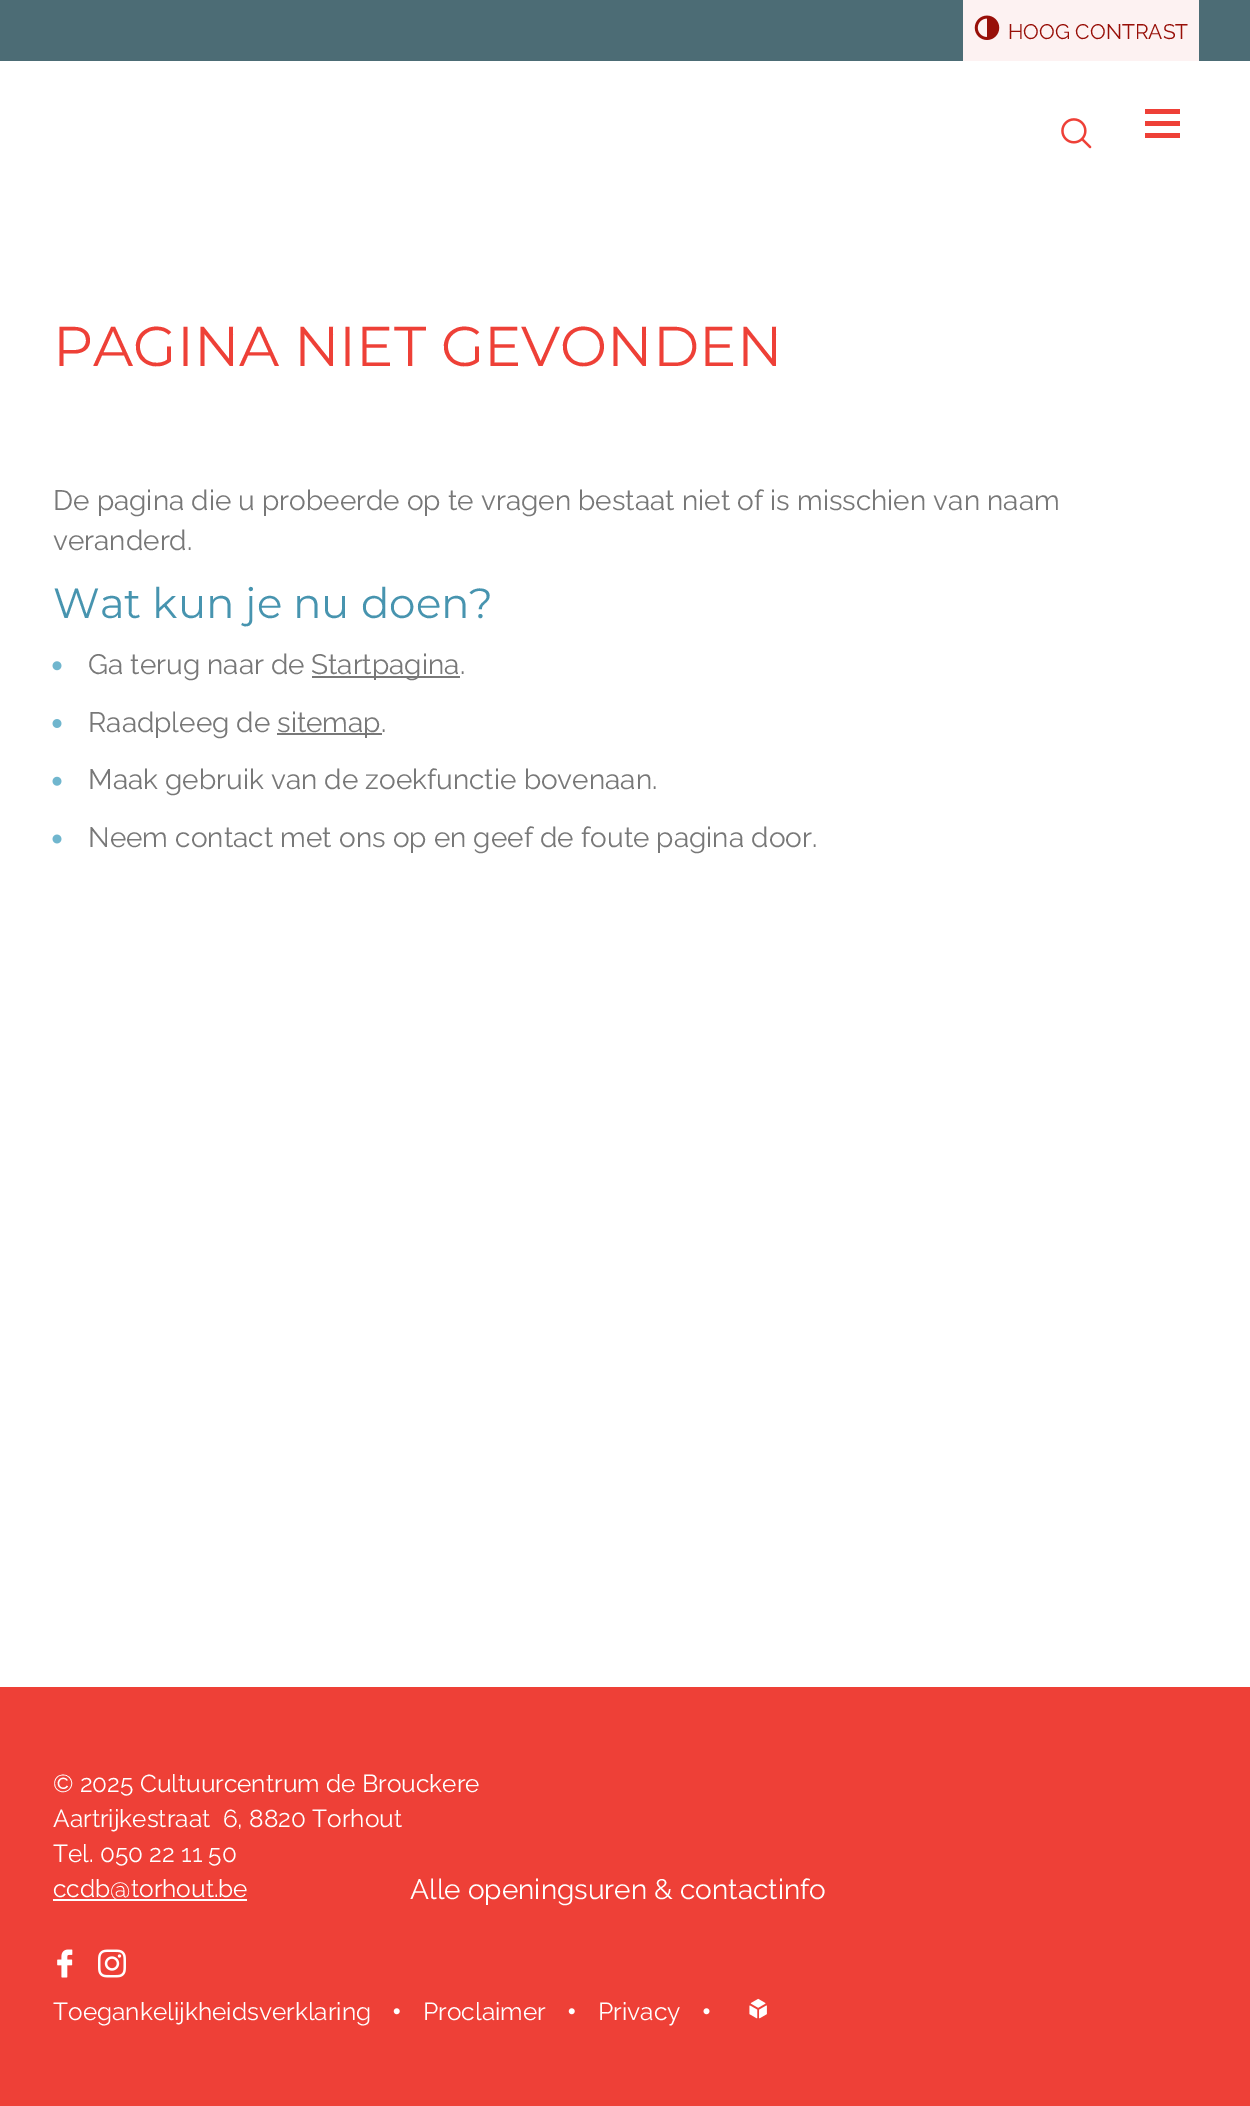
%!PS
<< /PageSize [1250 2106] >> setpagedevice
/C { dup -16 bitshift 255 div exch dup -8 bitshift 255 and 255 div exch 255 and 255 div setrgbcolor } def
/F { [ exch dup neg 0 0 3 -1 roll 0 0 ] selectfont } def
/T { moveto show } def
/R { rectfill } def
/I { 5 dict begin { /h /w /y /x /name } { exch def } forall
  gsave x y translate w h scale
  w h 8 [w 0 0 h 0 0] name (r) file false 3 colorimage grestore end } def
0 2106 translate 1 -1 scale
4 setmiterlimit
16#FFFFFF C
0 0 1250 2106 R
16#4C6C75 C
0 0 1250 61 R
16#FDF2F2 C
963 0 236 61 R
(1.rgb) 974 15 26 25 I
/Raleway-Regular 21 F
16#980F08 C
(HOOG CONTRAST) 1008 39 T
(2.rgb) 1061 118 31 31 I
16#EE4037 C
1145 121 35 5 R
1145 109 35 5 R
1145 133 35 5 R
/Montserrat-Regular 56 F
(PAGINA NIET GEVONDEN) 53 366 T
/Raleway-Regular 28 F
16#787878 C
(De pagina die u probeerde op te vragen bestaat niet of is misschien van naam) 53 510 T
(veranderd.) 53 550 T
/Montserrat-Regular 42 F
16#4794AF C
(Wat kun je nu doen?) 53 618 T
(3.rgb) 52 661 10 10 I
/Raleway-Regular 28 F
16#787878 C
(Ga terug naar de) 88 674 T
312 676 148 2 R
(Startpagina) 311 674 T
(.) 460 674 T
(4.rgb) 52 719 10 9 I
(Raadpleeg de) 88 732 T
277 733 105 2 R
(sitemap) 277 732 T
(.) 381 732 T
(5.rgb) 52 776 10 10 I
(Maak gebruik van de zoekfunctie bovenaan.) 88 789 T
(6.rgb) 52 834 10 10 I
(Neem contact met ons op en geef de foute pagina door.) 88 847 T
16#EE4037 C
0 1687 1250 419 R
/Raleway-Regular 24.5 F
16#FFFFFF C
(© 2025 Cultuurcentrum de Brouckere) 53 1792 T
(Aartrijkestraat  6, 8820 Torhout) 53 1827 T
(Tel. 050 22 11 50) 53 1862 T
53 1899 194 2 R
(ccdb@torhout.be) 53 1897 T
/Raleway-Regular 28 F
(Alle openingsuren & contactinfo) 410 1899 T
(7.rgb) 57 1949 16 29 I
(8.rgb) 98 1949 28 29 I
/Raleway-Regular 24.5 F
(Toegankelijkheidsverklaring) 53 2020 T
(9.rgb) 393 2008 7 7 I
(Proclaimer) 423 2020 T
(9.rgb) 568 2008 7 7 I
(Privacy) 598 2020 T
(10.rgb) 703 2008 7 7 I
(11.rgb) 749 1998 18 21 I
showpage
